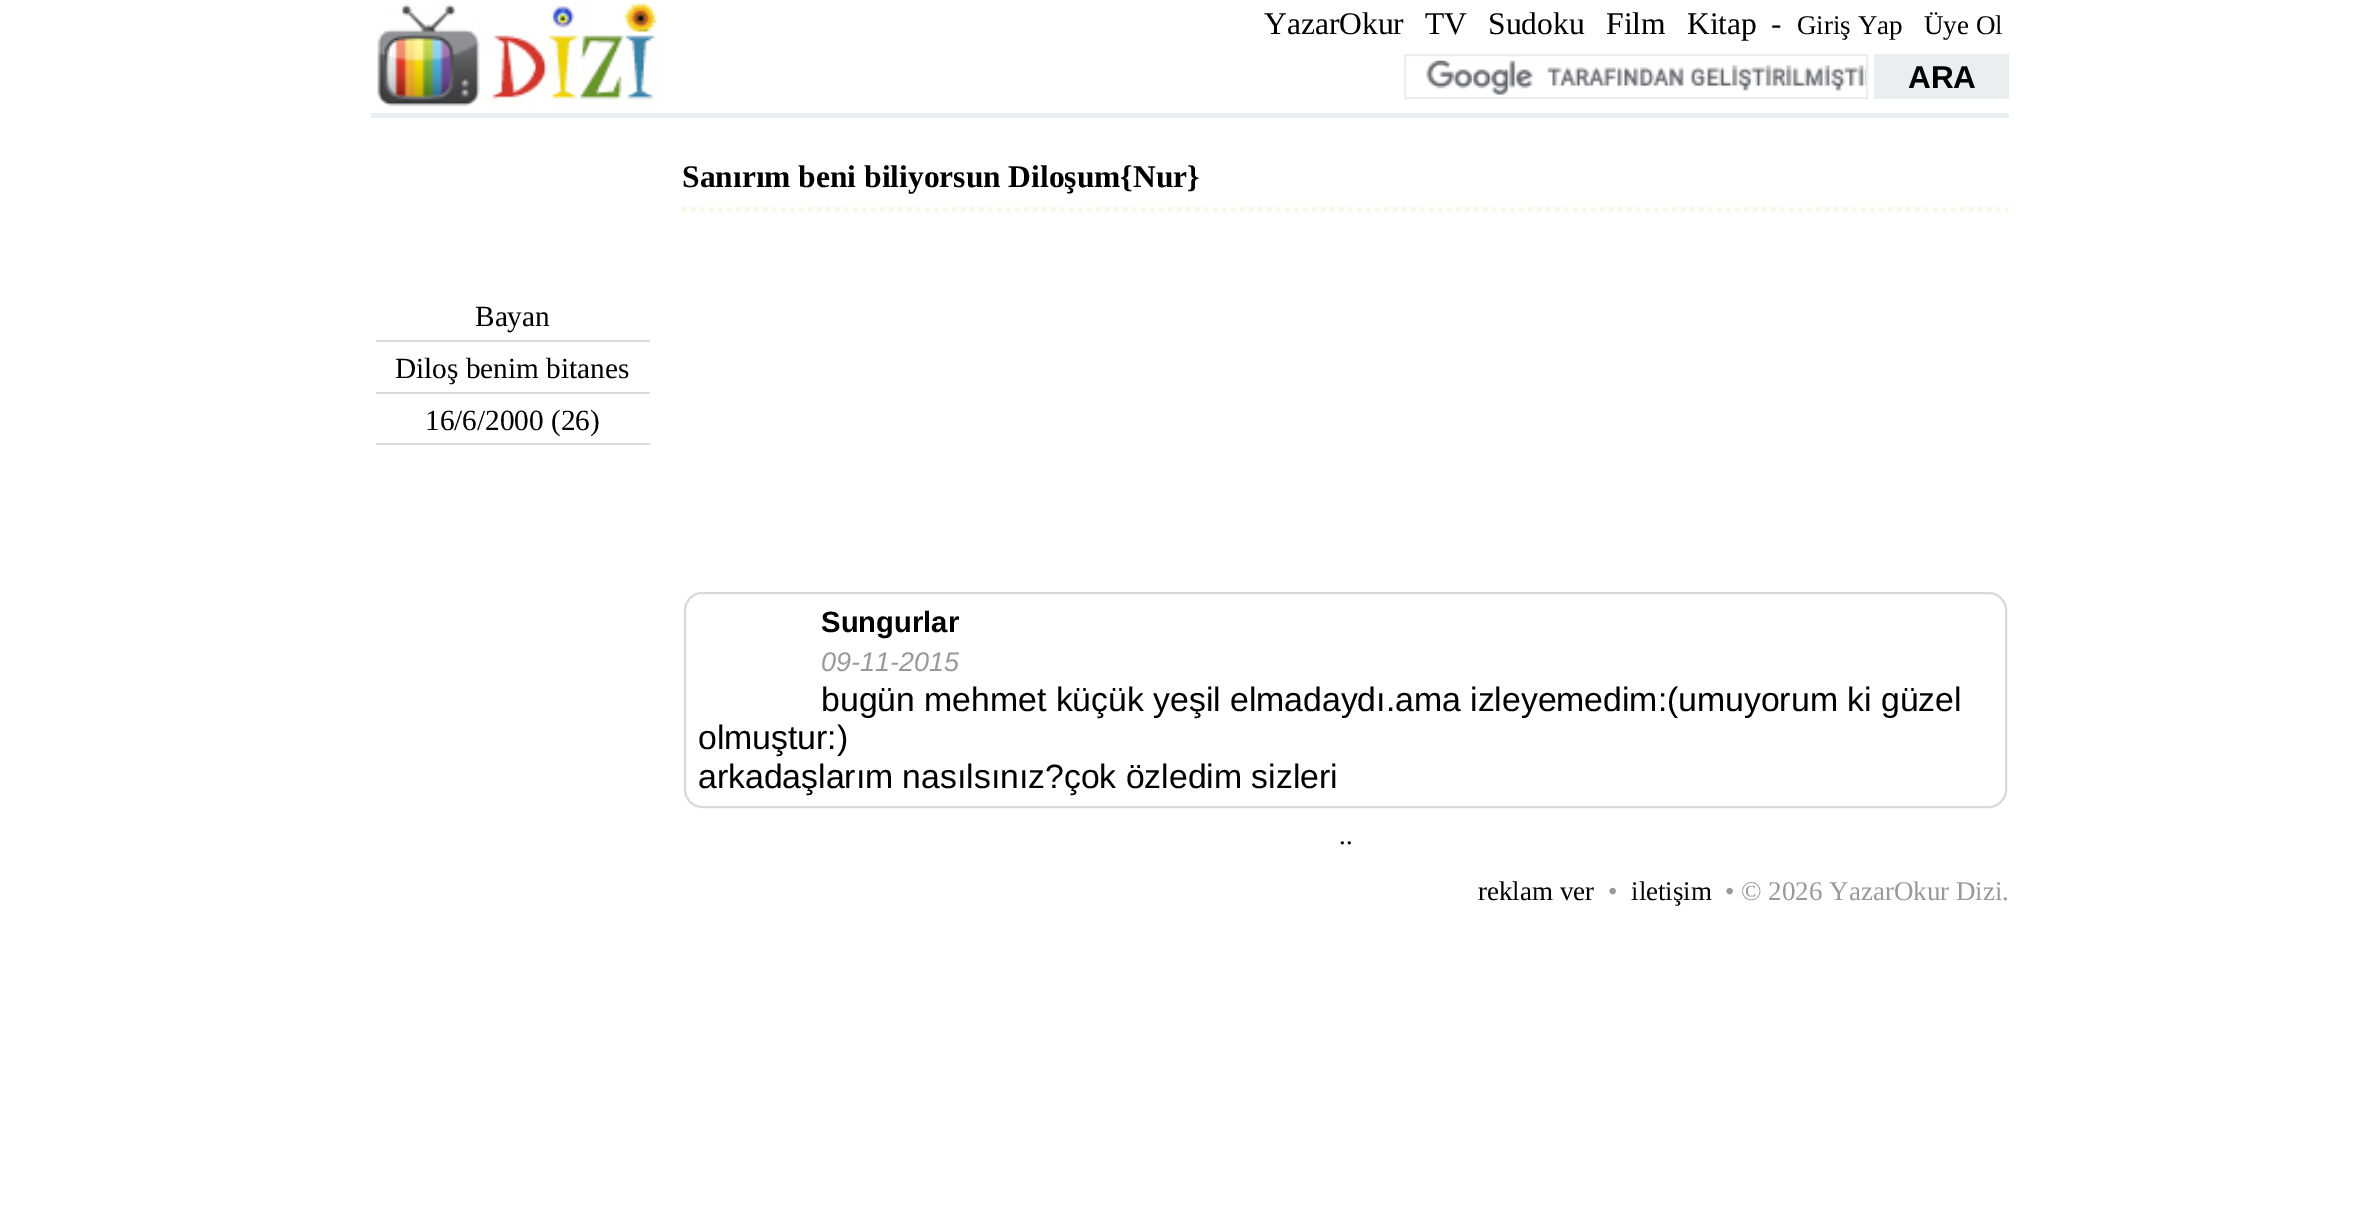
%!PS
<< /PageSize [2380 1216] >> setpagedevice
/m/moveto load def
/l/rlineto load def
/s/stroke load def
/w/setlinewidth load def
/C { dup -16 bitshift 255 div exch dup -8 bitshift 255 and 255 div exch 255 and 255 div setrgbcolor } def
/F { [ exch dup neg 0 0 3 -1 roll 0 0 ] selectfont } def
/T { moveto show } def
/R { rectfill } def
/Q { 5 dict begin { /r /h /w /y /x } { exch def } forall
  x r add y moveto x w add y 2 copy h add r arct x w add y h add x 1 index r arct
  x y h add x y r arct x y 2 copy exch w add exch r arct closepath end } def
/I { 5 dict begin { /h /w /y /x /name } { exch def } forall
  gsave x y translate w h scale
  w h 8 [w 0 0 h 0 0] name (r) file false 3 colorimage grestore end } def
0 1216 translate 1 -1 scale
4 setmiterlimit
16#FFFFFF C
0 0 2380 1216 R
16#E9EEF1 C
371 113 1638 5 R
(1.rgb) 377 1 282 106 I
/LiberationSerif-Regular 31.5 F
16#000000 C
(YazarOkur) 1264 34 T
(TV) 1425 34 T
(Sudoku) 1488 34 T
(Film) 1606 34 T
(Kitap) 1687 34 T
(-) 1771 34 T
/LiberationSerif-Regular 27 F
(Giriş Yap) 1797 34 T
(Üye Ol) 1924 34 T
(2.rgb) 1426 60 440 35 I
16#E9EEF1 C
2 w
1405 55 462 43 rectstroke
1874 54 135 45 R
/LiberationSans-Bold 31.5 F
16#000000 C
(ARA) 1908 88 T
16#D9DADC C
376 340 274 2 R
/LiberationSerif-Regular 29.25 F
16#000000 C
(Bayan) 475 326 T
16#D9DADC C
376 392 274 2 R
16#000000 C
(Diloş benim bitanes) 395 378 T
16#D9DADC C
376 443 274 2 R
16#000000 C
(16/6/2000 \(26\)) 425 430 T
16#F6F9E7 C
4.5 w
[4.5 4.5] 0 setdash
682 209 m 1327 0 l s
/LiberationSerif-Bold 31.5 F
16#000000 C
(Sanırım beni biliyorsun Diloşum{Nur}) 682 187 T
16#D9DADC C
2 w
[] 0 setdash
685 593 1321 214 17 Q s
/LiberationSans-Bold 29.25 F
16#000000 C
(Sungurlar) 821 632 T
/LiberationSans-Italic 27 F
16#999999 C
(09-11-2015) 821 671 T
/LiberationSans-Regular 33.75 F
16#000000 C
(bugün mehmet küçük yeşil elmadaydı.ama izleyemedim:\(umuyorum ki güzel) 821 711 T
(olmuştur:\)) 698 749 T
(arkadaşlarım nasılsınız?çok özledim sizleri) 698 788 T
/LiberationSerif-Regular 27 F
(..) 1339 844 T
(reklam ver) 1478 900 T
16#999999 C
(•) 1608 900 T
16#000000 C
(iletişim) 1631 900 T
16#999999 C
(• © 2026 YazarOkur Dizi.) 1725 900 T
showpage
